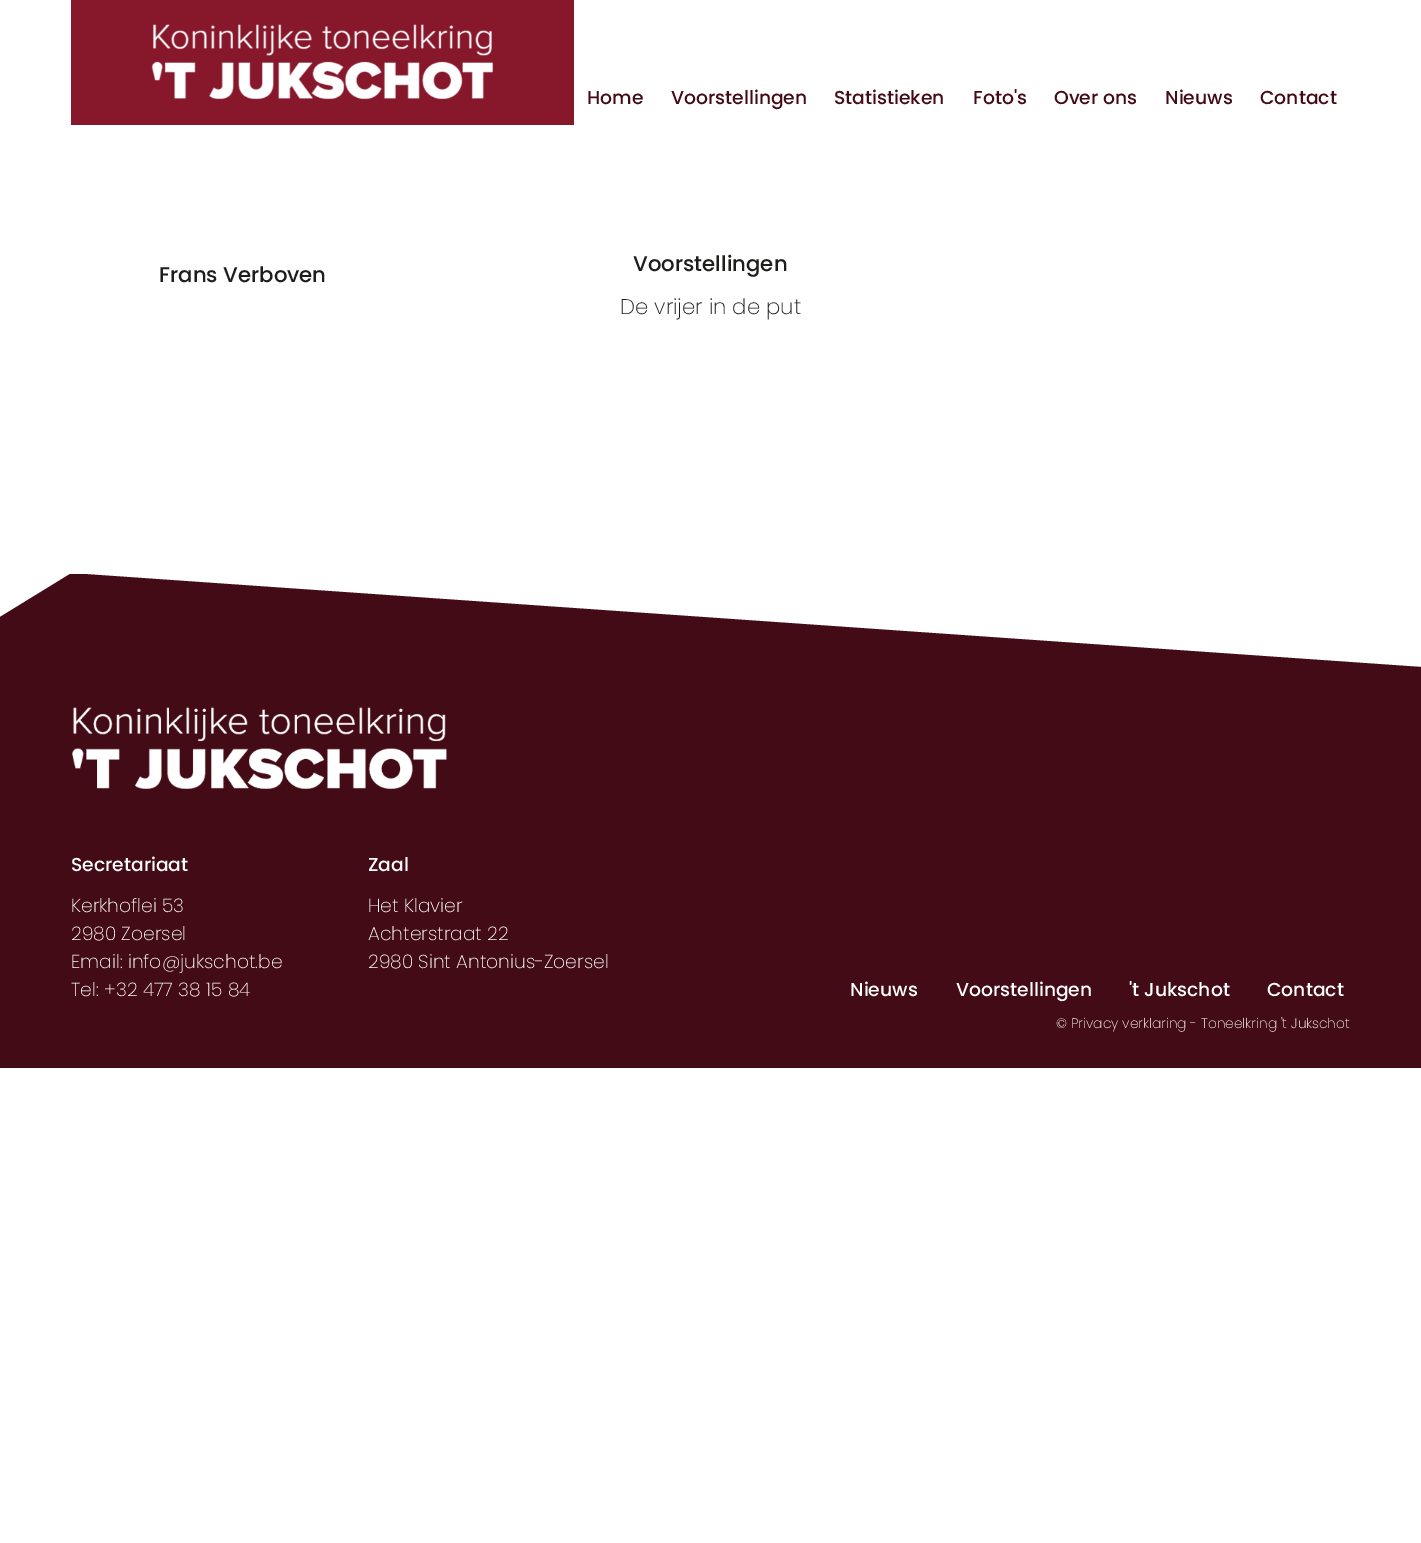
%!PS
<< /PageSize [1421 1543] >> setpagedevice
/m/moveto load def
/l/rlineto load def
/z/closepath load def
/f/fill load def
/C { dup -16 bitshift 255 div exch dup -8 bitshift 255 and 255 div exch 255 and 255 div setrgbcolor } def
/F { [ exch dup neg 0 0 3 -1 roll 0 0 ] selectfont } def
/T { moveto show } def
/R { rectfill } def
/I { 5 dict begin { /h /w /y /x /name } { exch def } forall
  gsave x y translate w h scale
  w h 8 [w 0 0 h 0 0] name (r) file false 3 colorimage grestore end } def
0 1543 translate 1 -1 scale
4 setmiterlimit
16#FFFFFF C
0 0 1421 1543 R
16#87172B C
71 0 503 125 R
(1.rgb) 151 24 343 76 I
/Poppins-Medium 18.75 F
16#430B15 C
(Home) 587 104 T
(Voorstellingen) 671 104 T
(Statistieken) 834 104 T
(Foto's) 973 104 T
(Over ons) 1054 104 T
(Nieuws) 1165 104 T
(Contact) 1260 104 T
/Poppins-Medium 21.25 F
16#1D1D1B C
(Frans Verboven) 159 282 T
(Voorstellingen) 633 271 T
/Poppins-ExtraLight 21.25 F
(De vrijer in de put) 620 314 T
16#430B15 C
0 617 m 0 451 l 1421 0 l 0 -401 l -1337 -93 l -14 0 l z f
(2.rgb) 72 707 375 82 I
/Poppins-Medium 18.75 F
16#FFFFFF C
(Secretariaat) 71 871 T
/Poppins-ExtraLight 18.75 F
(Kerkhoflei 53) 71 912 T
(2980 Zoersel) 71 940 T
(Email: info@jukschot.be) 71 968 T
(Tel: +32 477 38 15 84) 71 996 T
/Poppins-Medium 18.75 F
(Zaal) 368 871 T
/Poppins-ExtraLight 18.75 F
(Het Klavier) 368 912 T
(Achterstraat 22) 368 940 T
(2980 Sint Antonius-Zoersel) 368 968 T
/Poppins-Medium 18.75 F
(Nieuws) 850 996 T
(Voorstellingen) 956 996 T
('t Jukschot) 1129 996 T
(Contact) 1267 996 T
/Poppins-ExtraLight 13.75 F
(© Privacy verklaring - Toneelkring 't Jukschot) 1056 1028 T
showpage
